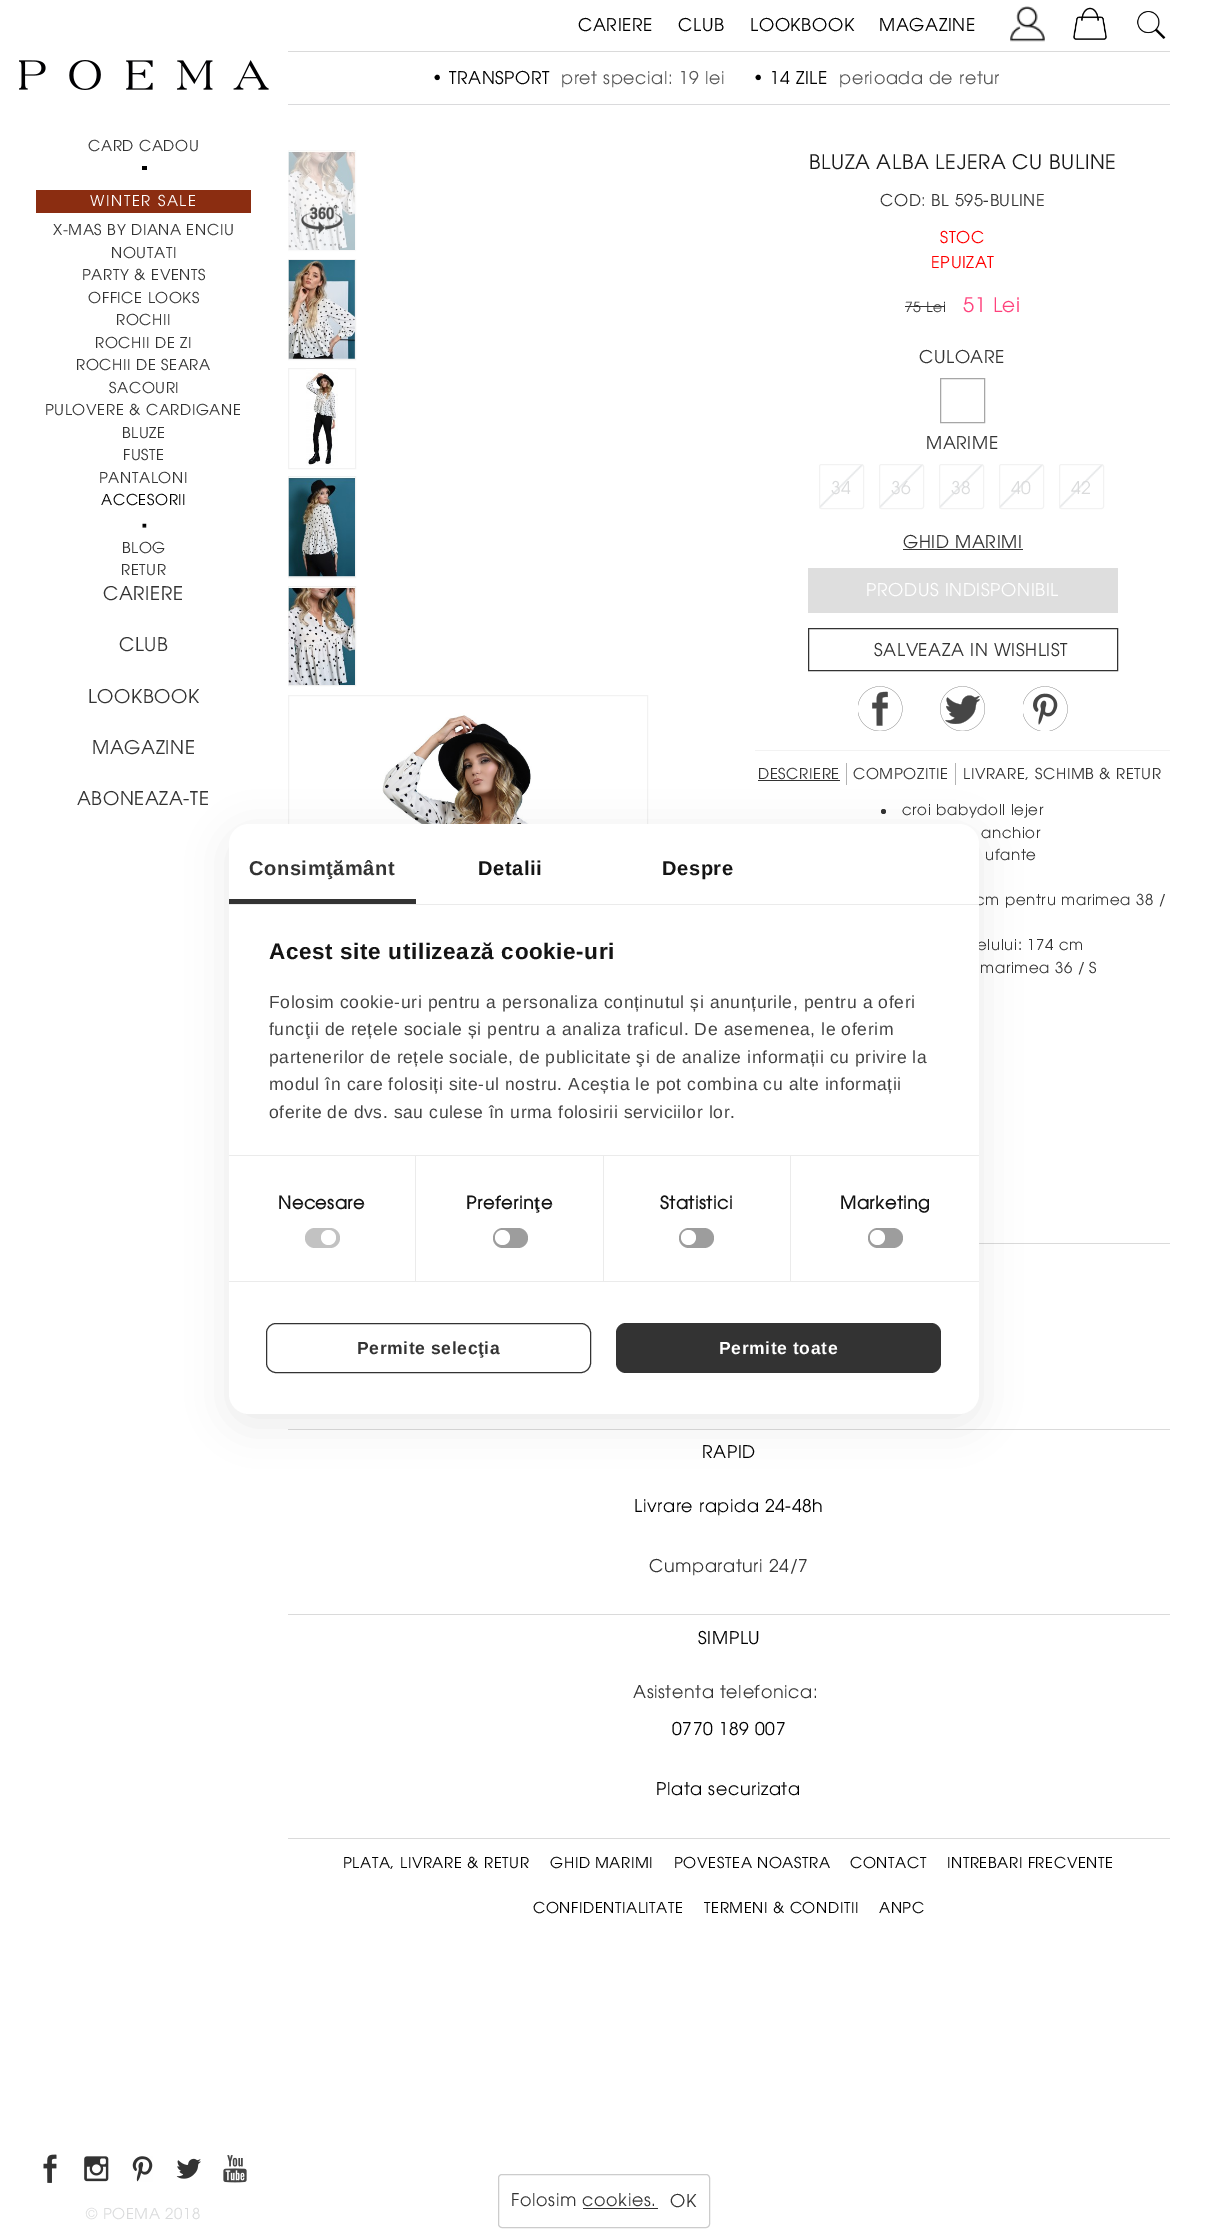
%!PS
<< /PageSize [1207 2237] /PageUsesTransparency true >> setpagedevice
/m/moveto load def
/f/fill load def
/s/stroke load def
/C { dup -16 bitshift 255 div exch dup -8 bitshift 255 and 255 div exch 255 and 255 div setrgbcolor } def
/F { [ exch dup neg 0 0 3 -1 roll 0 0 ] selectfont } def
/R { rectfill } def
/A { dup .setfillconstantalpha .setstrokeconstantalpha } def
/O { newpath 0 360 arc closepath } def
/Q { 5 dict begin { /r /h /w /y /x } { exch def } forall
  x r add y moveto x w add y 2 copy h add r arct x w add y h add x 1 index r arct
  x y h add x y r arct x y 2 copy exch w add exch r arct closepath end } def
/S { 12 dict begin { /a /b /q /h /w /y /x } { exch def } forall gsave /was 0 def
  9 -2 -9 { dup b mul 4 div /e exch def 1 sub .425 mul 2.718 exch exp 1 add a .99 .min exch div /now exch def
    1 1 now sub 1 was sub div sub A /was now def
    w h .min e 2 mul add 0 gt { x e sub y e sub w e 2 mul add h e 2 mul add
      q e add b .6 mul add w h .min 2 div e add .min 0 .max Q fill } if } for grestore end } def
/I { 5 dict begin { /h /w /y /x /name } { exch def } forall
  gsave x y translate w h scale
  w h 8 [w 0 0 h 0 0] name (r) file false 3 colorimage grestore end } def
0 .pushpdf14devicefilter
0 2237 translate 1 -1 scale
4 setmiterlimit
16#FFFFFF C
0 0 1207 2237 R
/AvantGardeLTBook-Regular 17.5 F
16#000000 C
578 31 m .62 0 (CARIERE) ashow
678 31 m .62 0 (CLUB) ashow
750 31 m .62 0 (LOOKBOOK) ashow
879 31 m .62 0 (MAGAZINE) ashow
(1.rgb) 1010 6 35 36 I
(2.rgb) 19 60 250 30 I
16#DADADA C
288 51 882 1 R
16#DADADC C
288 104 882 1 R
16#000000 C
432 84 m .62 0 (• TRANSPORT) ashow
16#555555 C
561 84 m .62 0 (pret special: 19 lei) ashow
16#000000 C
753 84 m .62 0 (• 14 ZILE) ashow
16#555555 C
839 84 m .62 0 (perioada de retur) ashow
(3.rgb) 1073 7 34 33 I
16#000000 C
142 166 5 4 R
/AvantGardeLTBook-Regular 15 F
16#333333 C
88 151 m .62 0 (CARD CADOU) ashow
(4.rgb) 1137 11 29 28 I
16#8B2D11 C
36 190 215 23 R
16#FFFFFF C
90 206 m 1.6 0 (WINTER SALE) ashow
16#333333 C
53 235 m .62 0 (X-MAS BY DIANA ENCIU) ashow
111 258 m .62 0 (NOUTATI) ashow
82 280 m .62 0 (PARTY & EVENTS) ashow
88 303 m .62 0 (OFFICE LOOKS) ashow
116 325 m .62 0 (ROCHII) ashow
95 348 m .62 0 (ROCHII DE ZI) ashow
76 370 m .62 0 (ROCHII DE SEARA) ashow
109 393 m .62 0 (SACOURI) ashow
45 415 m .62 0 (PULOVERE & CARDIGANE) ashow
122 438 m .62 0 (BLUZE) ashow
123 460 m .62 0 (FUSTE) ashow
99 483 m .62 0 (PANTALONI) ashow
16#000000 C
101 505 m .62 0 (ACCESORII) ashow
(5.rgb) 142 523 5 5 I
16#333333 C
122 553 m .62 0 (BLOG) ashow
121 575 m .62 0 (RETUR) ashow
/AvantGardeLTBook-Regular 18.75 F
103 600 m .62 0 (CARIERE) ashow
119 651 m .62 0 (CLUB) ashow
88 703 m .62 0 (LOOKBOOK) ashow
92 754 m .62 0 (MAGAZINE) ashow
77 805 m .62 0 (ABONEAZA-TE) ashow
16#FAFAFA C
288.5 150.5 67 100 rectstroke
(6.rgb) 288 151 67 99 I
(7.rgb) 301 205 42 29 I
16#F2F2F2 C
288.5 259.5 67 100 rectstroke
(8.rgb) 288 260 67 99 I
288.5 368.5 67 100 rectstroke
(9.rgb) 306 369 32 97 I
288.5 476.5 67 101 rectstroke
(10.rgb) 288 477 67 100 I
288.5 586.5 67 99 rectstroke
(11.rgb) 288 587 67 98 I
288.5 695.5 359 534 rectstroke
(12.rgb) 382 713 161 111 I
/AvantGardeLTBook-Regular 20 F
16#1A1A1A C
809 169 m .62 0 (BLUZA ALBA LEJERA CU BULINE) ashow
/AvantGardeLTBook-Regular 16.25 F
16#333333 C
880 206 m .62 0 (COD: BL 595-BULINE) ashow
16#FF0000 C
940 243 m .62 0 (STOC) ashow
931 268 m .62 0 (EPUIZAT) ashow
/AvantGardeLTBook-Regular 14 F
16#333333 C
905 312 m .62 0 (75 Lei) ashow
905 306 40 1 R
/AvantGardeLTBook-Regular 20 F
16#FF417C C
963 312 m .62 0 (51 Lei) ashow
/AvantGardeLTBook-Regular 17.5 F
16#333333 C
919 363 m .62 0 (CULOARE) ashow
16#A6A6A6 C
940.5 378.5 44 44 rectstroke
16#333333 C
926 449 m .62 0 (MARIME) ashow
(13.rgb) 819 464 44 45 I
16#F2F2F2 C
819.5 464.5 44 44 2 Q s
16#DADBDC C
831 494 m .62 0 (34) ashow
(14.rgb) 879 464 44 45 I
16#F2F2F2 C
879.5 464.5 44 44 2 Q s
16#DADBDC C
891 494 m .62 0 (36) ashow
(13.rgb) 939 464 44 45 I
16#F2F2F2 C
939.5 464.5 44 44 2 Q s
16#DADBDC C
951 494 m .62 0 (38) ashow
(15.rgb) 999 464 44 45 I
16#F2F2F2 C
999.5 464.5 44 44 2 Q s
16#DADBDC C
1011 494 m .62 0 (40) ashow
(14.rgb) 1059 464 44 45 I
16#F2F2F2 C
1059.5 464.5 44 44 2 Q s
16#DADBDC C
1071 494 m .62 0 (42) ashow
16#333333 C
903 548 m .62 0 (GHID MARIMI) ashow
903 549 120 1 R
16#DEDEDE C
808 568 310 45 R
16#FFFFFF C
866 596 m .62 0 (PRODUS INDISPONIBIL) ashow
16#333333 C
808.5 628.5 309 42 rectstroke
874 656 m .62 0 (SALVEAZA IN WISHLIST) ashow
(16.rgb) 858 686 45 45 I
(17.rgb) 940 686 45 45 I
(18.rgb) 1023 686 45 45 I
16#F2F2F2 C
755 750 415 1 R
16#B3B3B3 C
846 763 1 22 R
/AvantGardeLTBook-Regular 15 F
16#333333 C
758 779 m .62 0 (DESCRIERE) ashow
758 780 82 1 R
16#B3B3B3 C
955 763 1 22 R
16#333333 C
853 779 m .62 0 (COMPOZITIE) ashow
963 779 m .62 0 (LIVRARE, SCHIMB & RETUR) ashow
883.5 811.5 2.5 O f
902 815 m .62 0 (croi babydoll lejer) ashow
981 838 m .62 0 (anchior) ashow
985 860 m .62 0 (ufante) ashow
975 905 m .62 0 (cm pentru marimea 38 /) ashow
977 950 m .62 0 (elului: 174 cm) ashow
980 973 m .62 0 (marimea 36 / S) ashow
16#DADADA C
979 1243 191 1 R
288 1838 882 1 R
288 1429 882 1 R
288 1614 882 1 R
/AvantGardeLTBook-Regular 17.5 F
16#000000 C
702 1458 m .62 0 (RAPID) ashow
634 1512 m .62 0 (Livrare rapida 24-48h) ashow
16#333333 C
649 1572 m .62 0 (Cumparaturi 24/7) ashow
16#000000 C
698 1644 m .62 0 (SIMPLU) ashow
16#333333 C
633 1698 m .62 0 (Asistenta telefonica:) ashow
16#000000 C
672 1735 m .62 0 (0770 189 007) ashow
656 1795 m .62 0 (Plata securizata) ashow
/AvantGardeLTBook-Regular 15 F
343 1868 m .62 0 (PLATA, LIVRARE & RETUR) ashow
550 1868 m .62 0 (GHID MARIMI) ashow
674 1868 m .62 0 (POVESTEA NOASTRA) ashow
850 1868 m .62 0 (CONTACT) ashow
947 1868 m .62 0 (INTREBARI FRECVENTE) ashow
533 1913 m .62 0 (CONFIDENTIALITATE) ashow
704 1913 m .62 0 (TERMENI & CONDITII) ashow
879 1913 m .62 0 (ANPC) ashow
16#CCCCCC C
498.5 2174.5 211 53 3.5 Q s
/AvantGardeLTBook-Regular 17.5 F
16#333333 C
511 2206 m .62 0 (Folosim cookies.) ashow
583 2208 75 1 R
670 2207 m .62 0 (OK) ashow
(19.rgb) 43 2154 14 29 I
(20.rgb) 84 2156 25 26 I
(21.rgb) 132 2156 21 26 I
(22.rgb) 176 2158 25 21 I
(23.rgb) 223 2155 24 28 I
/AvantGardeLTBook-Regular 15 F
16#DADBDC C
86 2219 m .62 0 (© POEMA 2018) ashow
16#000000 C
229 834 750 590 20 20 .08 S
16#FFFFFF C
229 824 750 590 20 Q f
16#EBEBEB C
229 904 750 1 R
16#333333 C
229 899 187 5 R
/LiberationSans-Bold 20 F
249 875 m .62 0 (Consimţământ) ashow
16#141414 C
478 875 m .62 0 (Detalii) ashow
662 875 m .62 0 (Despre) ashow
/LiberationSans-Bold 22.5 F
269 959 m .62 0 (Acest site utilizează cookie-uri) ashow
/LiberationSans-Regular 17.5 F
16#434343 C
269 1008 m .62 0 (Folosim cookie-uri pentru a personaliza conținutul și anunțurile, pentru a oferi) ashow
269 1035 m .62 0 (funcţii de rețele sociale și pentru a analiza traficul. De asemenea, le oferim) ashow
269 1063 m .62 0 (partenerilor de rețele sociale, de publicitate şi de analize informații cu privire la) ashow
269 1090 m .62 0 (modul în care folosiți site-ul nostru. Aceștia le pot combina cu alte informații) ashow
269 1118 m .62 0 (oferite de dvs. sau culese în urma folosirii serviciilor lor.) ashow
16#EBEBEB C
229 1155 750 1 R
229 1281 750 1 R
415 1156 1 125 R
/AvantGardeLTBook-Bold 17.5 F
16#141414 C
278 1209 m .62 0 (Necesare) ashow
16#C2C2C2 C
305 1228 35 20 10 Q f
16#FFFFFF C
328.5 1237.5 7.5 O f
16#EBEBEB C
603 1156 1 125 R
16#141414 C
466 1209 m .62 0 (Preferin) ashow
/LiberationSans-Bold 17.5 F
534 1209 m .62 0 (ţ) ashow
/AvantGardeLTBook-Bold 17.5 F
541 1209 m .62 0 (e) ashow
16#9D9D9D C
493 1228 35 20 10 Q f
16#FFFFFF C
502.5 1237.5 7.5 O f
16#EBEBEB C
790 1156 1 125 R
16#141414 C
660 1209 m .62 0 (Statistici) ashow
16#9D9D9D C
679 1228 35 20 10 Q f
16#FFFFFF C
688.5 1237.5 7.5 O f
16#141414 C
840 1209 m .62 0 (Marketing) ashow
16#9D9D9D C
868 1228 35 20 10 Q f
16#FFFFFF C
877.5 1237.5 7.5 O f
16#333333 C
266.5 1323.5 324 49 9.5 Q s
/LiberationSans-Bold 17.5 F
357 1354 m .62 0 (Permite selecţia) ashow
616 1323 325 50 10 Q f
16#FFFFFF C
719 1354 m .62 0 (Permite toate) ashow
.poppdf14devicefilter showpage
